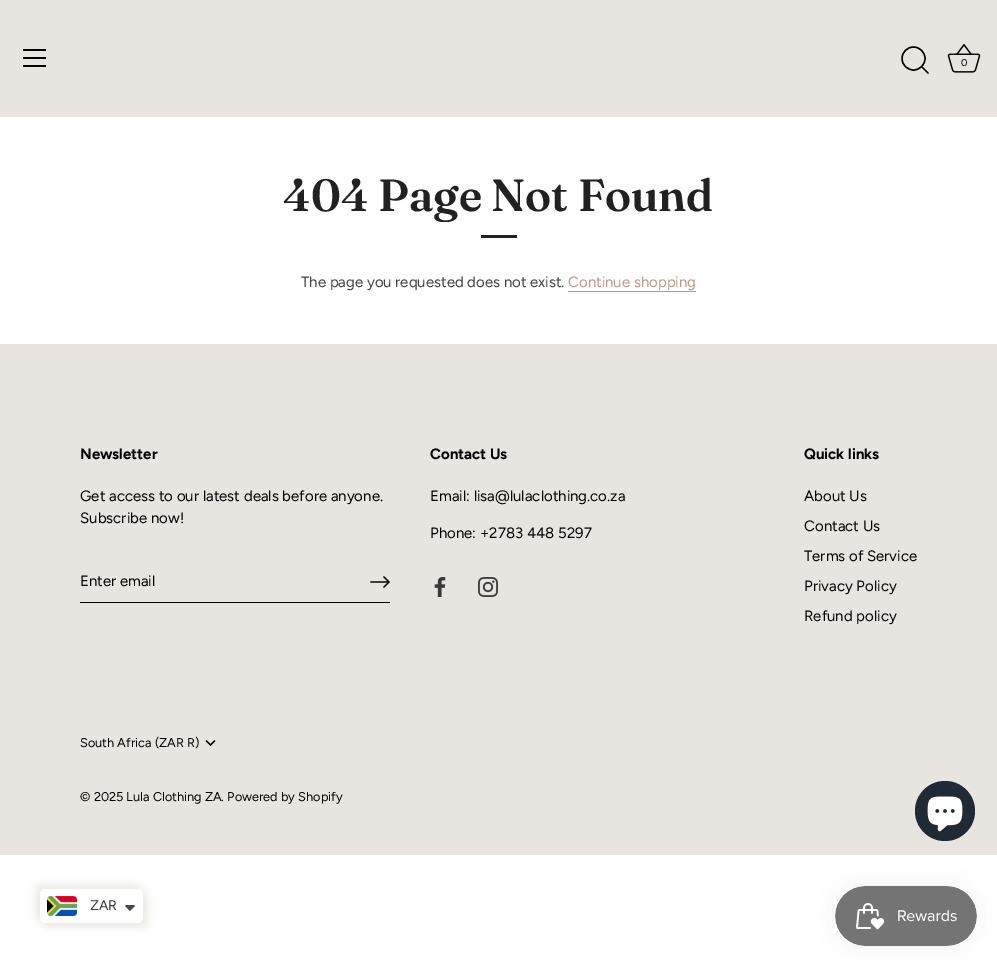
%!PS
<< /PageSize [997 966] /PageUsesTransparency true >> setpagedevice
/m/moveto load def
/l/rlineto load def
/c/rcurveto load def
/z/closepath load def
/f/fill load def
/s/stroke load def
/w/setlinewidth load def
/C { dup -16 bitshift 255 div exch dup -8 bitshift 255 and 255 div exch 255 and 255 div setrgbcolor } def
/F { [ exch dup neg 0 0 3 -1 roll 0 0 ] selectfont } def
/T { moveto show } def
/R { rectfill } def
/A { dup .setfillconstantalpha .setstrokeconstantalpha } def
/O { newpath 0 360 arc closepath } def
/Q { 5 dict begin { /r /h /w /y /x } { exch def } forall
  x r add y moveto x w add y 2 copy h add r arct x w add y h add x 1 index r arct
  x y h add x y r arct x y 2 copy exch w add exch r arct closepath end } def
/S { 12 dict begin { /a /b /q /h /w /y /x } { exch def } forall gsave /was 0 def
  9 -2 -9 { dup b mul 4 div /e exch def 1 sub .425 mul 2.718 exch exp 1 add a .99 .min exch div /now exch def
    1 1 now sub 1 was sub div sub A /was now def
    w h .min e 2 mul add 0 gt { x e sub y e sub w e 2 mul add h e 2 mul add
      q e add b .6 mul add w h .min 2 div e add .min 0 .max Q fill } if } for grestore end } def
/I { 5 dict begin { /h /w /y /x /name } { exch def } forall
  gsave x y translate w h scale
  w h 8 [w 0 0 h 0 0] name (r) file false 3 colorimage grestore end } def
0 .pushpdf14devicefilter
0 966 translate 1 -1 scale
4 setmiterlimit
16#FFFFFF C
0 0 997 966 R
16#E8E4DF C
0 0 997 117 R
16#000000 C
23 49 23 2 R
23 57 23 2 R
23 65 23 2 R
1.4 w
913.5 58.5 11.5 O s
1 setlinecap
1 setlinejoin
928 73 m -6 -6 l s
(1.rgb) 947 44 34 29 I
/Figtree-Regular 10 F
(0) 961 66 T
/Fraunces-SemiBold 45 F
16#212121 C
(404 Page Not Found) 283 211 T
481 235 36 3 R
/Figtree-Regular 15 F
16#423F3F C
(The page you requested does not exist.) 301 287 T
16#B79987 C
(Continue shopping) 568 287 T
568 291 128 1 R
16#E8E4DF C
0 344 997 511 R
/Figtree-Bold 15 F
16#000000 C
(Newsletter) 80 459 T
/Figtree-Regular 15 F
(Get access to our latest deals before anyone.) 80 501 T
(Subscribe now!) 80 523 T
80 602 310 1 R
(Enter email) 80 586 T
1.3 w
0 setlinejoin
384 587 m 5 -5 l -5 -5 l s
1 setlinejoin
388 582 m -17 0 l s
/Figtree-Bold 15 F
(Contact Us) 430 459 T
/Figtree-Regular 15 F
(Email: lisa@lulaclothing.co.za) 430 501 T
(Phone: +2783 448 5297) 430 538 T
(2.rgb) 434 577 12 20 I
(3.rgb) 478 577 20 20 I
/Figtree-Bold 15 F
(Quick links) 804 459 T
/Figtree-Regular 15 F
(About Us) 804 501 T
(Contact Us) 804 531 T
(Terms of Service) 804 561 T
(Privacy Policy) 804 591 T
(Refund policy) 804 621 T
/Figtree-Regular 12.75 F
(South Africa \(ZAR R\)) 80 747 T
1.4 w
0 setlinejoin
206.5 741 m 4 4 l 4 -4 l s
(© 2025 Lula Clothing ZA. Powered by Shopify) 80 801 T
16#202A36 C
945 811 30 O f
(4.rgb) 927 796 36 36 I
16#E8E8E2 C
36 885 103 34 5 4.5 1 S
44 893 103 34 5 4.5 1 S
16#FFFFFF C
40 889 103 34 5 Q f
(5.rgb) 47 896 30 20 I
/Figtree-Regular 14 F
16#333333 C
(ZAR) 90 910 T
16#474942 C
127 905 m -1 0 -1.5 .5 -2 1 c 5 5 l 5 -5 l -1 -1 l z f
16#000000 C
835 886 142 60 30 12.5 .05 S
(6.rgb) 835 886 142 60 I
.poppdf14devicefilter showpage
